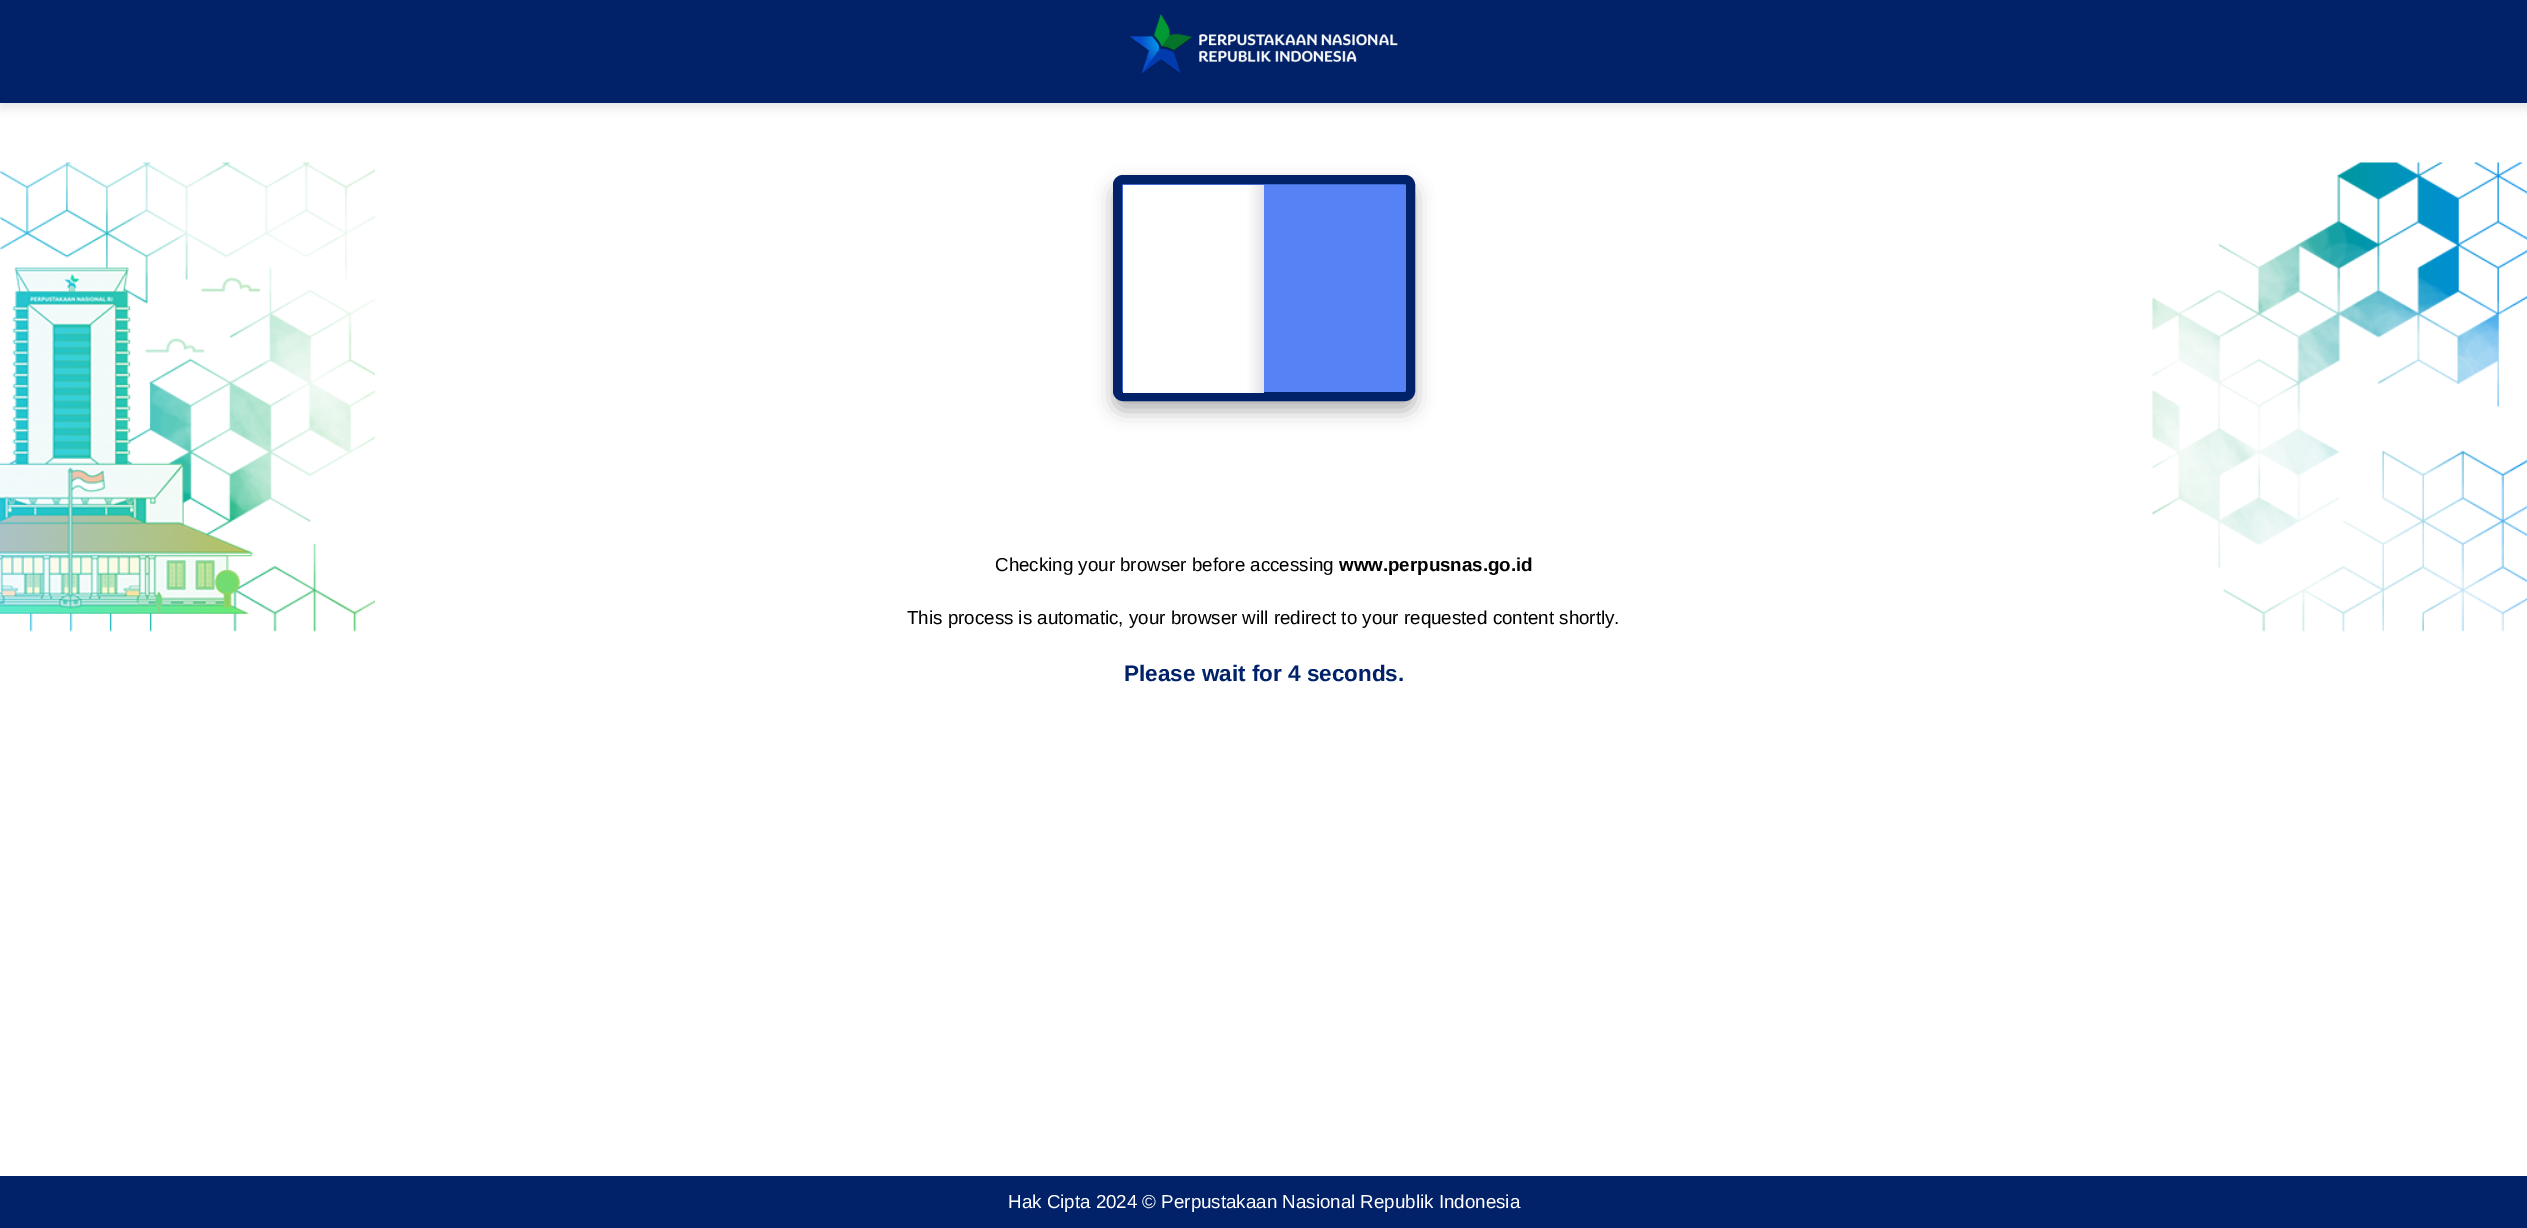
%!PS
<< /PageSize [2527 1228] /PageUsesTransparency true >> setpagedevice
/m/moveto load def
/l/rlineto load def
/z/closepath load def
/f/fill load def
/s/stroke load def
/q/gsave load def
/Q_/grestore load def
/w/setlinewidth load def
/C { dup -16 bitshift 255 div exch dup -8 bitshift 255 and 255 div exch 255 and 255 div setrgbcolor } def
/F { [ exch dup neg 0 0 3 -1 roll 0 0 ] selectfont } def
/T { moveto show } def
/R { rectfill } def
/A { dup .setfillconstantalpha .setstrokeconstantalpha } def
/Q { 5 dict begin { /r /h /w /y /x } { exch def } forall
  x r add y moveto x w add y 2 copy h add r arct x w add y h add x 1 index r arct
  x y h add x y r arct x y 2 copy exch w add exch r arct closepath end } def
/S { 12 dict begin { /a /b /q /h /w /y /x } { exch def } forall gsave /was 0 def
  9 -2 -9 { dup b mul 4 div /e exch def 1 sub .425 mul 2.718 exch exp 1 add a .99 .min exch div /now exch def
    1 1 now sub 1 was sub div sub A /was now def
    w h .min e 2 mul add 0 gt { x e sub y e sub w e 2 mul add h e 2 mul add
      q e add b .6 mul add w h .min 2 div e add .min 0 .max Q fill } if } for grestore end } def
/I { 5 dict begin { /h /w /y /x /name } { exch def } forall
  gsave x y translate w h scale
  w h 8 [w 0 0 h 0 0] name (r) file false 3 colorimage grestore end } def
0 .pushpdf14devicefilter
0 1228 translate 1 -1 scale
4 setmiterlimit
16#FFFFFF C
0 0 2527 1228 R
16#000000 C
0 5 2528 103 0 5 .1 S
16#012269 C
0 0 2527 103 R
(1.rgb) 1129 14 269 61 I
(2.rgb) 0 162 375 470 I
16#000000 C
1113 185 302 226 10 9.5 .3 S
16#5583F6 C
1117.5 179.5 293 217 5.5 Q q f Q_
16#012269 C
9 w
s
q 1123 185 m 141 0 l 0 208 l -141 0 l z clip newpath
<< /ShadingType 2 /ColorSpace /DeviceRGB /Coords [1123 289 1264 289] /Extend [true true] /Function << /FunctionType 3 /Domain [0 1] /Functions [<< /FunctionType 2 /Domain [0 1] /C0 [1 1 1] /C1 [1 1 1] /N 1 >> << /FunctionType 2 /Domain [0 1] /C0 [1 1 1] /C1 [.89 .894 .91] /N 1 >>] /Bounds [.88] /Encode [0 1 0 1] >> >> shfill Q_
(3.rgb) 2152 162 375 470 I
/LiberationSans-Regular 18.75 F
16#000000 C
(Checking your browser before accessing) 995 571 T
/LiberationSans-Bold 18.75 F
(www.perpusnas.go.id) 1339 571 T
/LiberationSans-Regular 18.75 F
(This process is automatic, your browser will redirect to your requested content shortly.) 907 624 T
/LiberationSans-Bold 22.5 F
16#012269 C
(Please wait for 4 seconds.) 1124 681 T
0 1176 2527 52 R
/LiberationSans-Regular 18.75 F
16#FFFFFF C
(Hak Cipta 2024 © Perpustakaan Nasional Republik Indonesia) 1008 1208 T
.poppdf14devicefilter showpage
